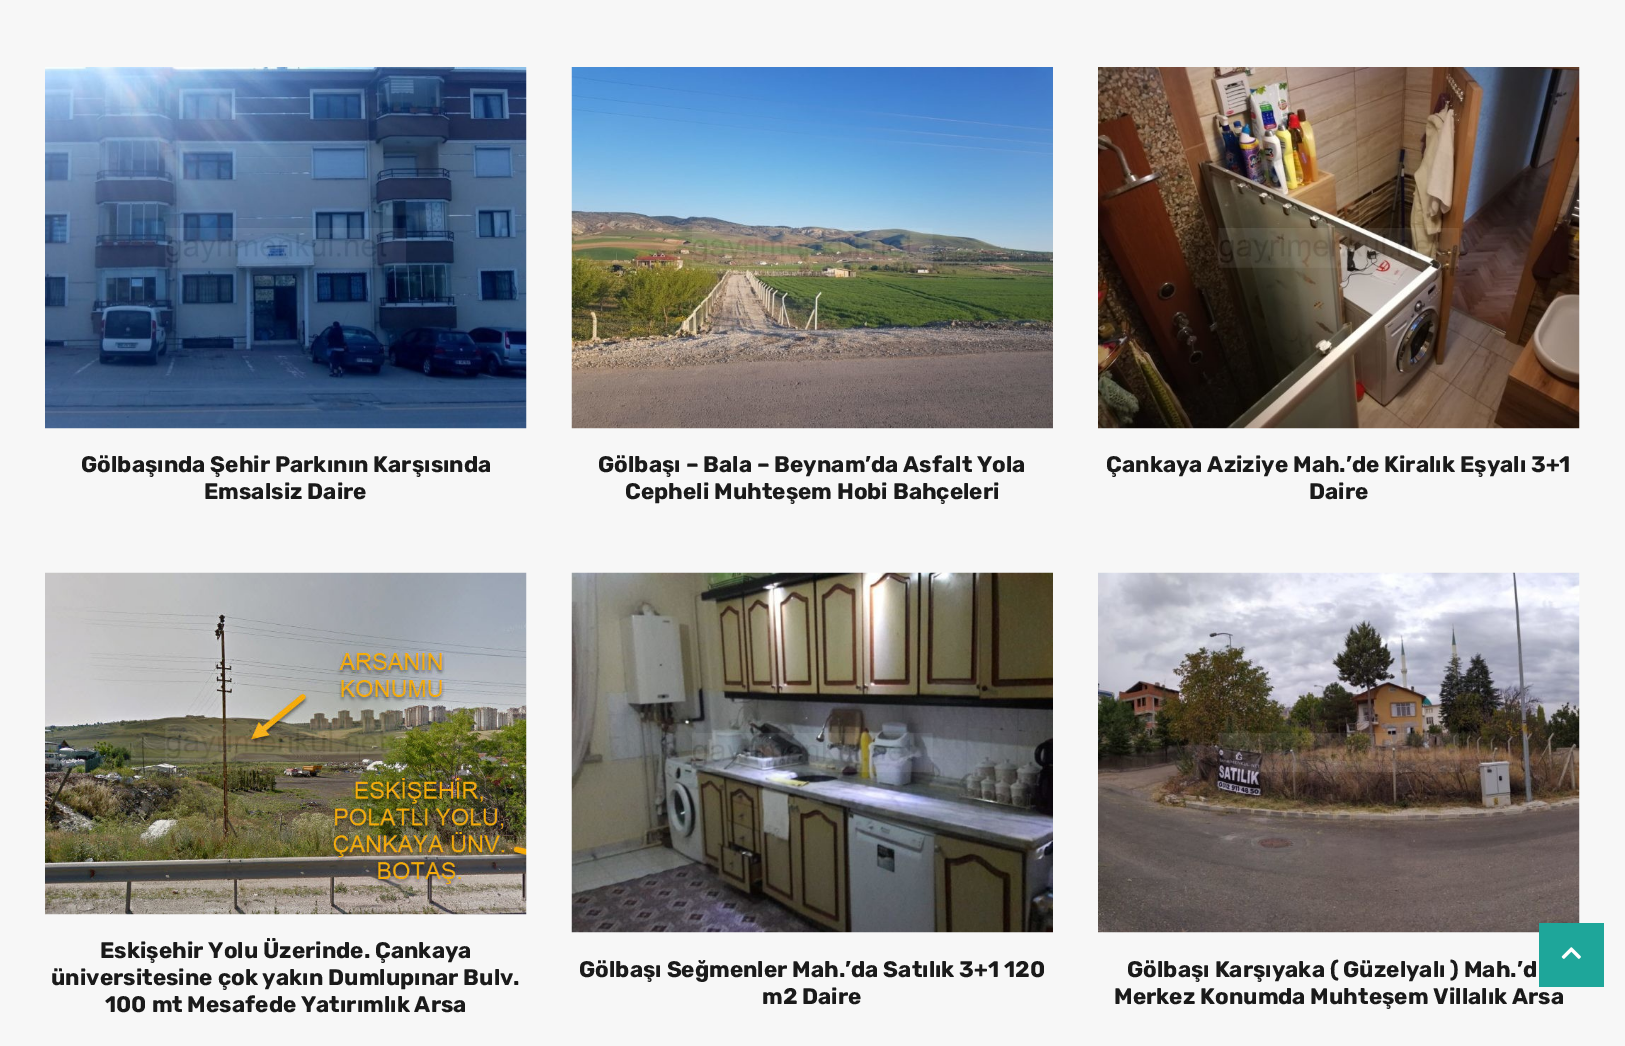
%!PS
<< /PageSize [1625 1046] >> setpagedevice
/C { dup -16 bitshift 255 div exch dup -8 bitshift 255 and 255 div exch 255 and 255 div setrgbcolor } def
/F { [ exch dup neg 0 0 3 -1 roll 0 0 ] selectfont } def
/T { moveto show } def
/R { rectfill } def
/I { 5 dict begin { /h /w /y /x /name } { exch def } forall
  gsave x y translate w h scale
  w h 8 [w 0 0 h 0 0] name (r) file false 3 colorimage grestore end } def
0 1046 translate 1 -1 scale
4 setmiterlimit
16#F7F7F7 C
0 0 1625 1046 R
(1.rgb) 45 67 482 362 I
/Rubik-Bold 22.5 F
16#1A1A1A C
(Gölbaşında Şehir Parkının Karşısında) 81 472 T
(Emsalsiz Daire) 204 499 T
(2.rgb) 571 67 482 362 I
(Gölbaşı – Bala – Beynam’da Asfalt Yola) 598 472 T
(Cepheli Muhteşem Hobi Bahçeleri) 625 499 T
(3.rgb) 1098 67 482 362 I
(Çankaya Aziziye Mah.’de Kiralık Eşyalı 3+1) 1106 472 T
(Daire) 1309 499 T
(4.rgb) 45 572 482 343 I
(Eskişehir Yolu Üzerinde. Çankaya) 100 958 T
(üniversitesine çok yakın Dumlupınar Bulv.) 51 985 T
(100 mt Mesafede Yatırımlık Arsa) 105 1012 T
(5.rgb) 571 572 482 361 I
(Gölbaşı Seğmenler Mah.’da Satılık 3+1 120) 579 977 T
(m2 Daire) 762 1004 T
(6.rgb) 1098 572 482 361 I
(Gölbaşı Karşıyaka \( Güzelyalı \) Mah.’d) 1127 977 T
(Merkez Konumda Muhteşem Villalık Arsa) 1114 1004 T
16#1EA69A C
1539 923 65 64 R
(7.rgb) 1561 947 20 12 I
showpage
